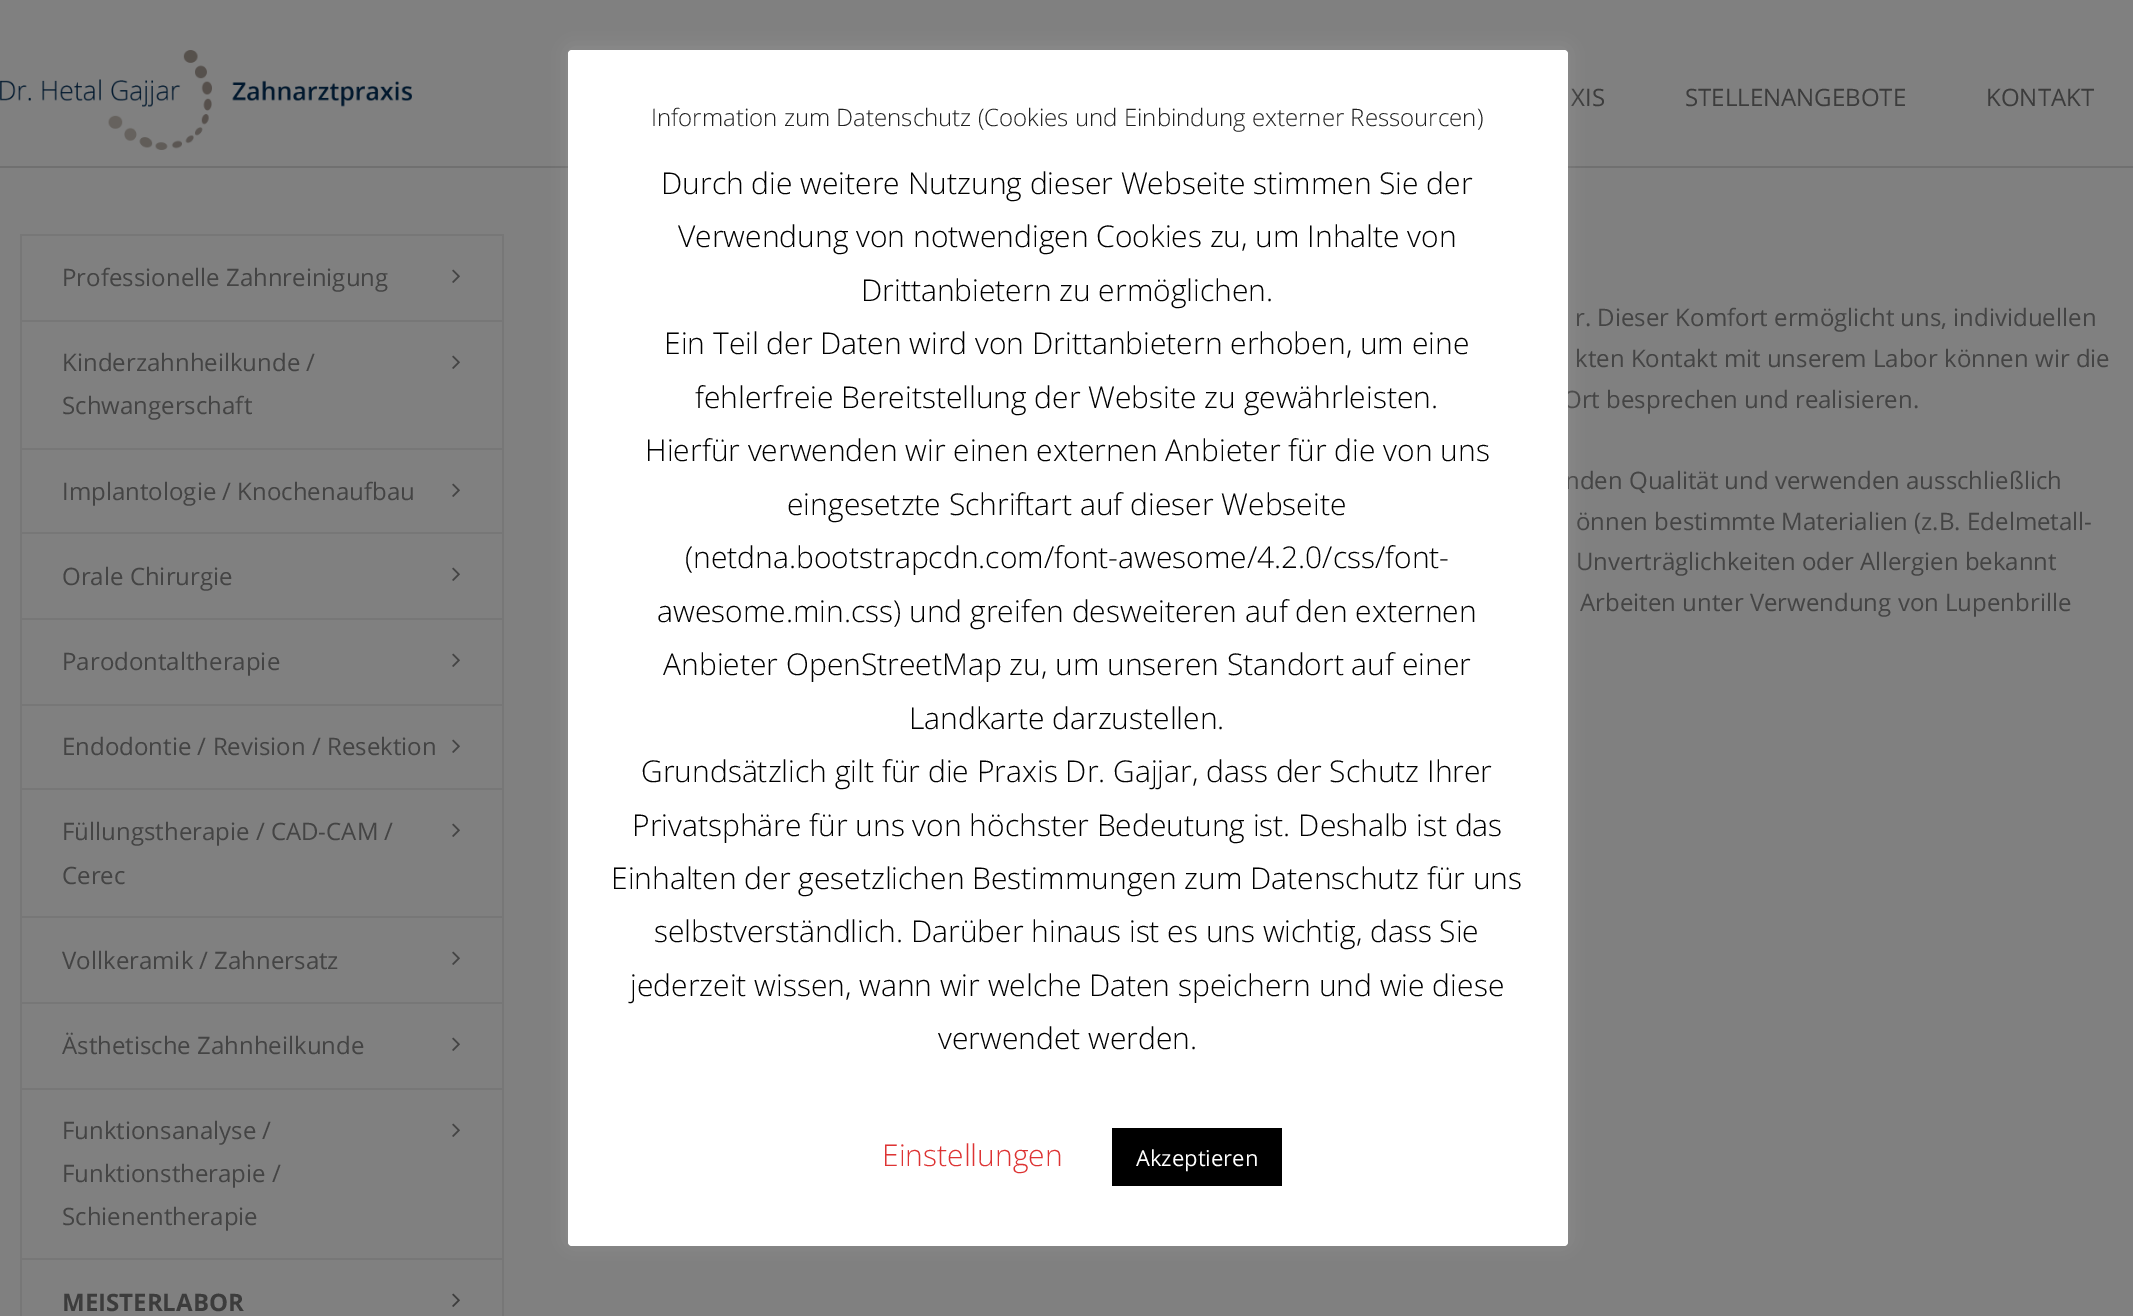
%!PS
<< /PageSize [2133 1316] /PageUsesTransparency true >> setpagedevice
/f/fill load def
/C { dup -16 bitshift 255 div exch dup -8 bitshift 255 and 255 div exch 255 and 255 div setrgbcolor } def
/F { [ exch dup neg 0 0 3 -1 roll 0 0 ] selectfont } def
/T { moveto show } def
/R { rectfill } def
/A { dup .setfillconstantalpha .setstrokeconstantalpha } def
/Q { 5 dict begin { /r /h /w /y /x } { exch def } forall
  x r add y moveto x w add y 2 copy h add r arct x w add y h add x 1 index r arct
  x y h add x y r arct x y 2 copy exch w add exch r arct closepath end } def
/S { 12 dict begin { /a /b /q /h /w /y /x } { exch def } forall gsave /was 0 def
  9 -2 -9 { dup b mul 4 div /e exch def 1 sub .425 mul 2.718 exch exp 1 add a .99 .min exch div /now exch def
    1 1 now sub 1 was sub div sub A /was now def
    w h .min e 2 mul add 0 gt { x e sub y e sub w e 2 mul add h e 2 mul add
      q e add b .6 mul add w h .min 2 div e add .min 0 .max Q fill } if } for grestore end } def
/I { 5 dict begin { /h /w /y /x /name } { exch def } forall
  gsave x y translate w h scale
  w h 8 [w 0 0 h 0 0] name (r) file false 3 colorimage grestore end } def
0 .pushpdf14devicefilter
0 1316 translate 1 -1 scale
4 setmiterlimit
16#808080 C
0 0 2133 1316 R
16#707070 C
0 166 2133 2 R
(1.rgb) 0 50 412 100 I
/OpenSans-Regular 24 F
16#3C3C3C C
(XIS) 1571 106 T
(STELLENANGEBOTE) 1685 106 T
(KONTAKT) 1986 106 T
16#777777 C
20 234 484 2 R
502 234 2 1082 R
20 234 2 1082 R
22 320 480 2 R
16#444444 C
(Professionelle Zahnreinigung) 62 286 T
(2.rgb) 452 269 8 14 I
16#777777 C
22 448 480 2 R
16#444444 C
(Kinderzahnheilkunde /) 62 371 T
(2.rgb) 452 355 8 14 I
(Schwangerschaft) 62 414 T
16#777777 C
22 532 480 2 R
16#444444 C
(Implantologie / Knochenaufbau) 62 500 T
(2.rgb) 452 483 8 14 I
16#777777 C
22 618 480 2 R
16#444444 C
(Orale Chirurgie) 62 585 T
(2.rgb) 452 567 8 14 I
16#777777 C
22 704 480 2 R
16#444444 C
(Parodontaltherapie) 62 670 T
(2.rgb) 452 653 8 14 I
16#777777 C
22 788 480 2 R
16#444444 C
(Endodontie / Revision / Resektion) 62 755 T
(2.rgb) 452 739 8 14 I
16#777777 C
22 916 480 2 R
16#444444 C
(Füllungstherapie / CAD-CAM /) 62 840 T
(2.rgb) 452 823 8 14 I
(Cerec) 62 884 T
16#777777 C
22 1002 480 2 R
16#444444 C
(Vollkeramik / Zahnersatz) 62 969 T
(2.rgb) 452 951 8 14 I
16#777777 C
22 1088 480 2 R
16#444444 C
(Ästhetische Zahnheilkunde) 62 1054 T
(2.rgb) 452 1037 8 14 I
16#777777 C
22 1258 480 2 R
16#444444 C
(Funktionsanalyse /) 62 1139 T
(2.rgb) 452 1123 8 14 I
(Funktionstherapie /) 62 1182 T
(Schienentherapie) 62 1225 T
/OpenSans-Bold 24 F
16#3C3C3C C
(MEISTERLABOR) 62 1311 T
(3.rgb) 452 1293 8 14 I
/OpenSans-Regular 24 F
16#444444 C
(r. Dieser Komfort ermöglicht uns, individuellen) 1575 326 T
(kten Kontakt mit unserem Labor können wir die) 1575 367 T
(Ort besprechen und realisieren.) 1563 408 T
(nden Qualität und verwenden ausschließlich) 1565 489 T
(önnen bestimmte Materialien \(z.B. Edelmetall-) 1576 530 T
(Unverträglichkeiten oder Allergien bekannt) 1576 570 T
(Arbeiten unter Verwendung von Lupenbrille) 1580 611 T
16#ACABAB C
568 48 1000 1196 4 10 .3 S
16#FFFFFF C
568 50 1000 1196 4 Q f
/OpenSans-Light 24 F
16#202020 C
(Information zum Datenschutz \(Cookies und Einbindung externer Ressourcen\)) 651 126 T
/OpenSans-Light 30 F
16#000000 C
(Durch die weitere Nutzung dieser Webseite stimmen Sie der) 661 194 T
(Verwendung von notwendigen Cookies zu, um Inhalte von) 678 247 T
(Drittanbietern zu ermöglichen.) 861 301 T
(Ein Teil der Daten wird von Drittanbietern erhoben, um eine) 664 354 T
(fehlerfreie Bereitstellung der Website zu gewährleisten.) 695 408 T
(Hierfür verwenden wir einen externen Anbieter für die von uns) 645 461 T
(eingesetzte Schriftart auf dieser Webseite) 787 515 T
(\(netdna.bootstrapcdn.com/font-awesome/4.2.0/css/font-) 685 568 T
(awesome.min.css\) und greifen desweiteren auf den externen) 657 622 T
(Anbieter OpenStreetMap zu, um unseren Standort auf einer) 663 675 T
(Landkarte darzustellen.) 909 729 T
(Grundsätzlich gilt für die Praxis Dr. Gajjar, dass der Schutz Ihrer) 641 782 T
(Privatsphäre für uns von höchster Bedeutung ist. Deshalb ist das) 632 836 T
(Einhalten der gesetzlichen Bestimmungen zum Datenschutz für uns) 611 889 T
(selbstverständlich. Darüber hinaus ist es uns wichtig, dass Sie) 654 942 T
(jederzeit wissen, wann wir welche Daten speichern und wie diese) 630 996 T
(verwendet werden.) 938 1049 T
16#DD3333 C
(Einstellungen) 882 1166 T
16#000000 C
1112 1128 170 58 R
/OpenSans-Regular 22 F
16#FFFFFF C
(Akzeptieren) 1136 1166 T
.poppdf14devicefilter showpage
